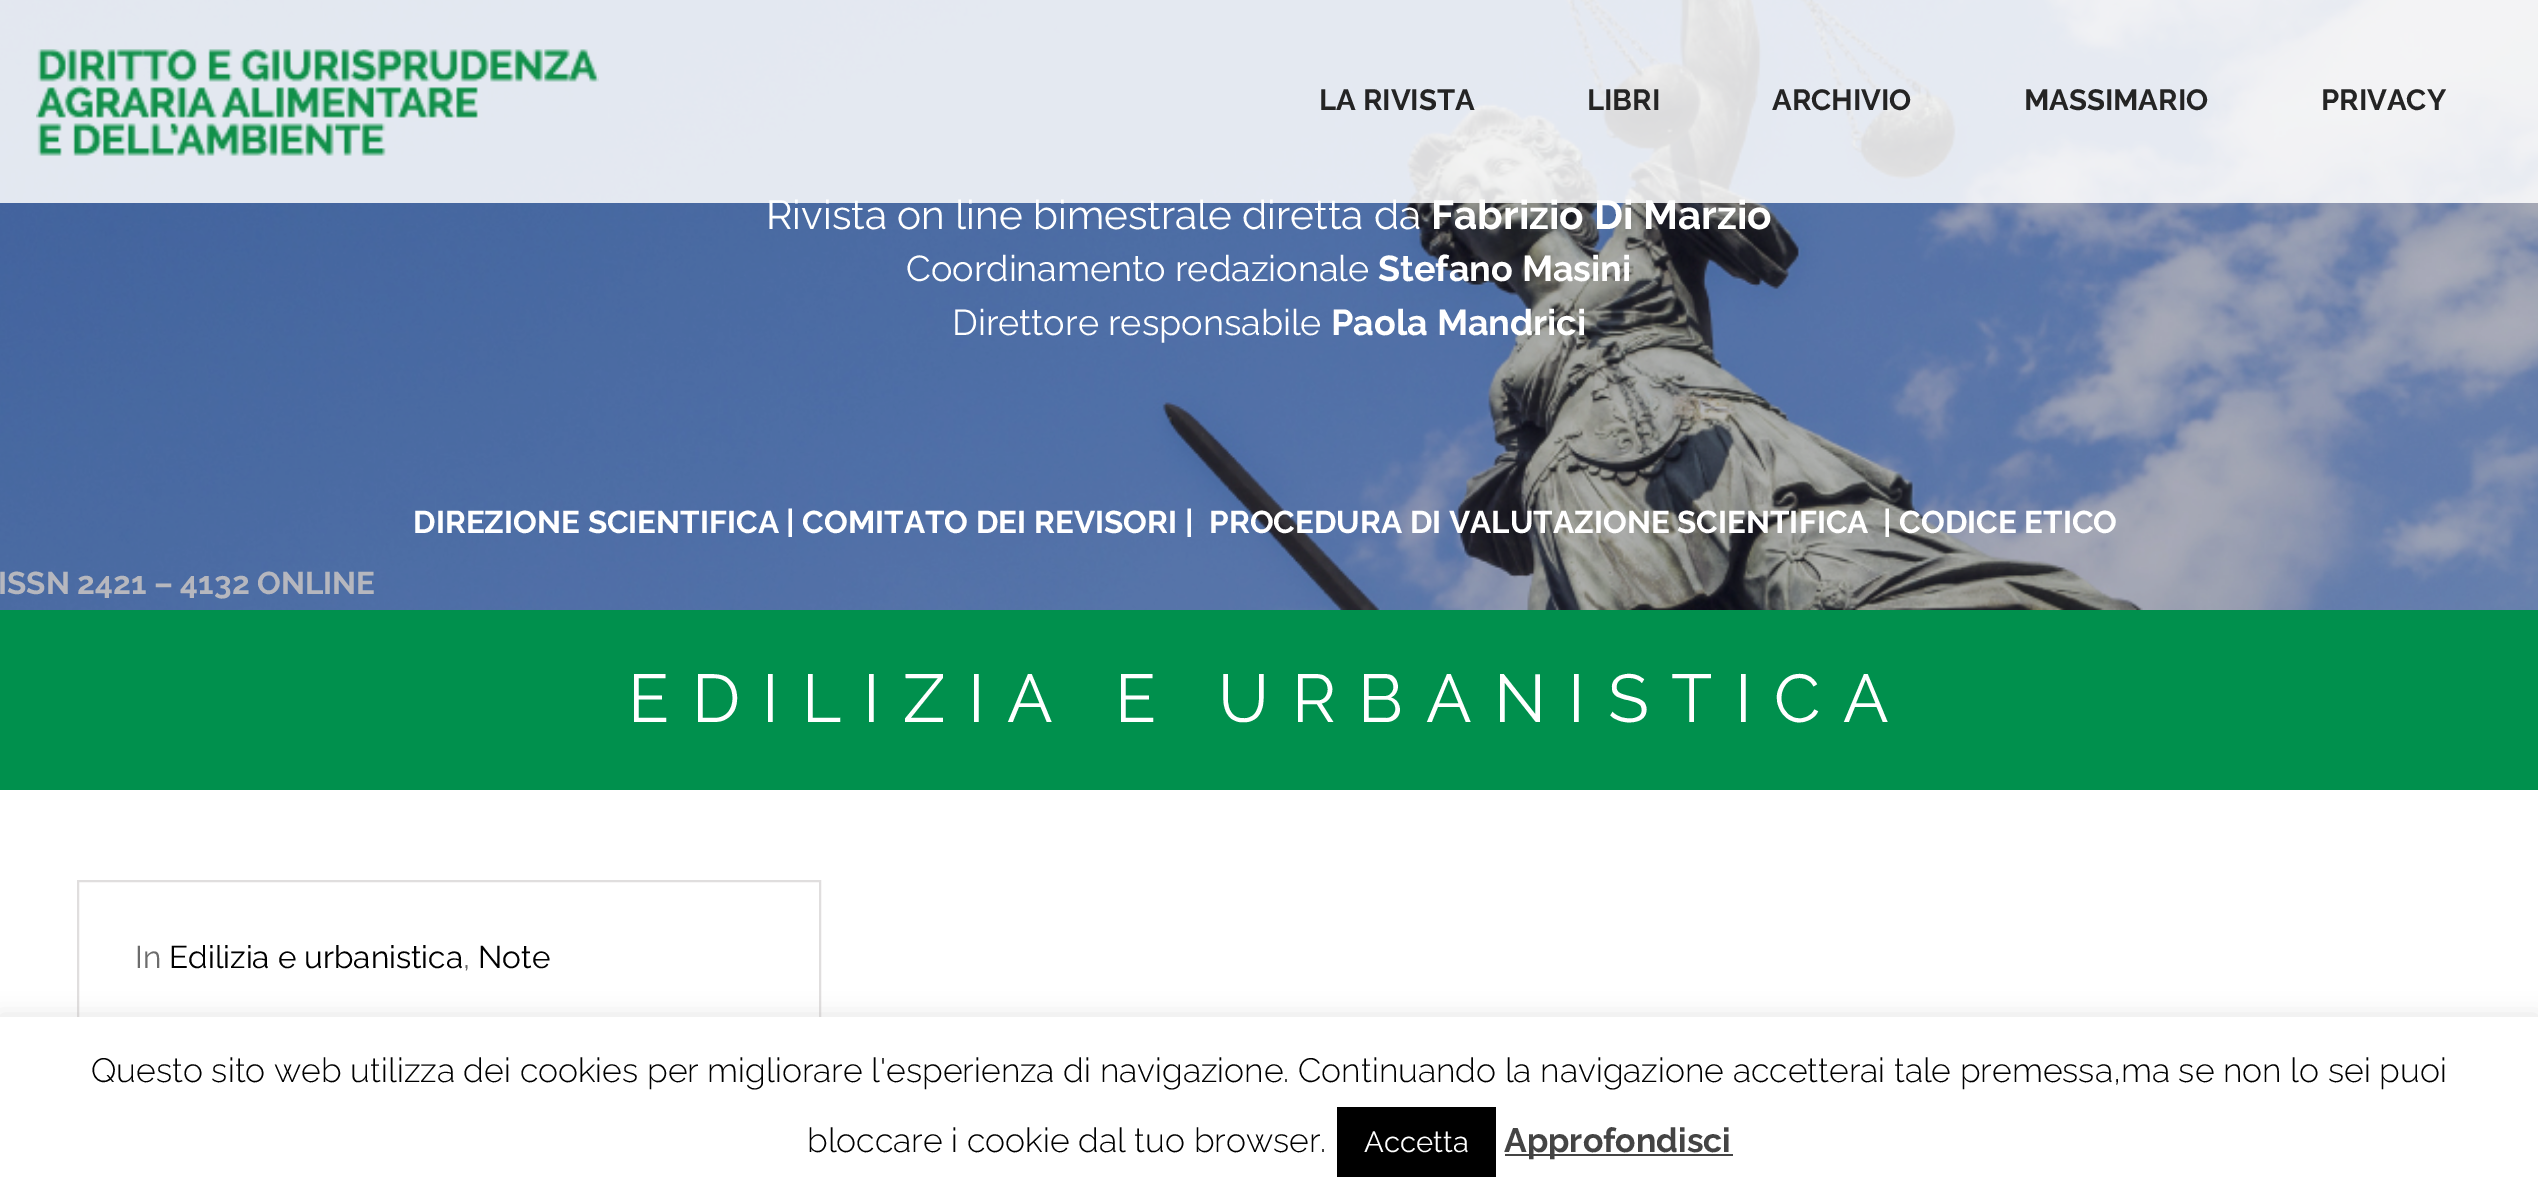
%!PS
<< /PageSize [2538 1203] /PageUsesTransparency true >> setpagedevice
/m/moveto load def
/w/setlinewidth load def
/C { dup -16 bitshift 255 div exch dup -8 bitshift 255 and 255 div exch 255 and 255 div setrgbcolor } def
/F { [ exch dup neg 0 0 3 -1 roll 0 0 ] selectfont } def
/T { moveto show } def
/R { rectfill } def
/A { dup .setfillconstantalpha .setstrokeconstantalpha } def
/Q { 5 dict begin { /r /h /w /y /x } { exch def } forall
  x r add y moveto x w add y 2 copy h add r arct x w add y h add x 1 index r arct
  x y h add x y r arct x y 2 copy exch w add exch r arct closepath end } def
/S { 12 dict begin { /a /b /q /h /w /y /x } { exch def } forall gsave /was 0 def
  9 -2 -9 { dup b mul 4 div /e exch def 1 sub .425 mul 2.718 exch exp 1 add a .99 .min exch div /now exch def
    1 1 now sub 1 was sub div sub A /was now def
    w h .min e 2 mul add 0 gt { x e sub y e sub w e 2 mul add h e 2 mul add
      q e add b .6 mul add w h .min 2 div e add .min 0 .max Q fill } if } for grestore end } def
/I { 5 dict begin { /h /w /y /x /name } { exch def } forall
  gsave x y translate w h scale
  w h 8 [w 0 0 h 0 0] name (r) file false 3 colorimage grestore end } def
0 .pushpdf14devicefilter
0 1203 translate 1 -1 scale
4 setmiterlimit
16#FFFFFF C
0 0 2538 1203 R
(2.rgb) 0 0 2538 610 I
/Raleway-Regular 40.5 F
(Rivista on line bimestrale diretta da) 766 229 T
/Raleway-Thin 40.5 F
(Fabrizio Di Marzio) 1431 229 T
0.85 A
0 0 2538 203 R
1 A
(1.rgb) 36 49 563 107 I
/Raleway-Thin 29.25 F
16#242424 C
(LA RIVISTA) 1319 110 T
(LIBRI) 1587 110 T
(ARCHIVIO) 1772 110 T
(MASSIMARIO) 2024 110 T
(PRIVACY) 2321 110 T
/Raleway-Regular 36 F
16#FFFFFF C
(Coordinamento redazionale) 906 281 T
/Raleway-Thin 36 F
(Stefano Masini) 1378 281 T
/Raleway-Regular 36 F
(Direttore responsabile) 952 335 T
/Raleway-Thin 36 F
(Paola Mandrici) 1331 335 T
/Raleway-Thin 31.5 F
(DIREZIONE SCIENTIFICA | COMITATO DEI REVISORI |) 413 533 T
(PROCEDURA DI VALUTAZIONE SCIENTIFICA) 1209 533 T
(| CODICE ETICO) 1883 533 T
16#B6B7BE C
(ISSN 2421 – 4132) -2 594 T
(ONLINE) 257 594 T
16#00904D C
0 610 2538 180 R
/Raleway-Regular 67.5 F
16#FFFFFF C
628 722 m 22.5 0 (EDILIZIA E URBANISTICA) ashow
16#E0DEDE C
2 w
78 881 742 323 rectstroke
/Raleway-Regular 31.5 F
16#6C6C6C C
(In) 135 968 T
16#000000 C
(Edilizia e urbanistica) 169 968 T
16#6C6C6C C
(,) 463 968 T
16#000000 C
(Note) 478 968 T
16#ACABAB C
0 1015 2538 187 0 11 .3 S
16#FFFFFF C
0 1017 2538 186 R
/Raleway-Light 33.75 F
16#000000 C
(Questo sito web utilizza dei cookies per migliorare l'esperienza di navigazione. Continuando la navigazione accetterai tale premessa,ma se non lo sei puoi) 91 1082 T
(bloccare i cookie dal tuo browser.) 807 1152 T
1337 1107 159 70 R
/Raleway-Regular 29.25 F
16#FFFFFF C
(Accetta) 1364 1152 T
16#444444 C
1505 1154 228 2 R
/Raleway-Thin 33.75 F
(Approfondisci) 1504 1152 T
.poppdf14devicefilter showpage
